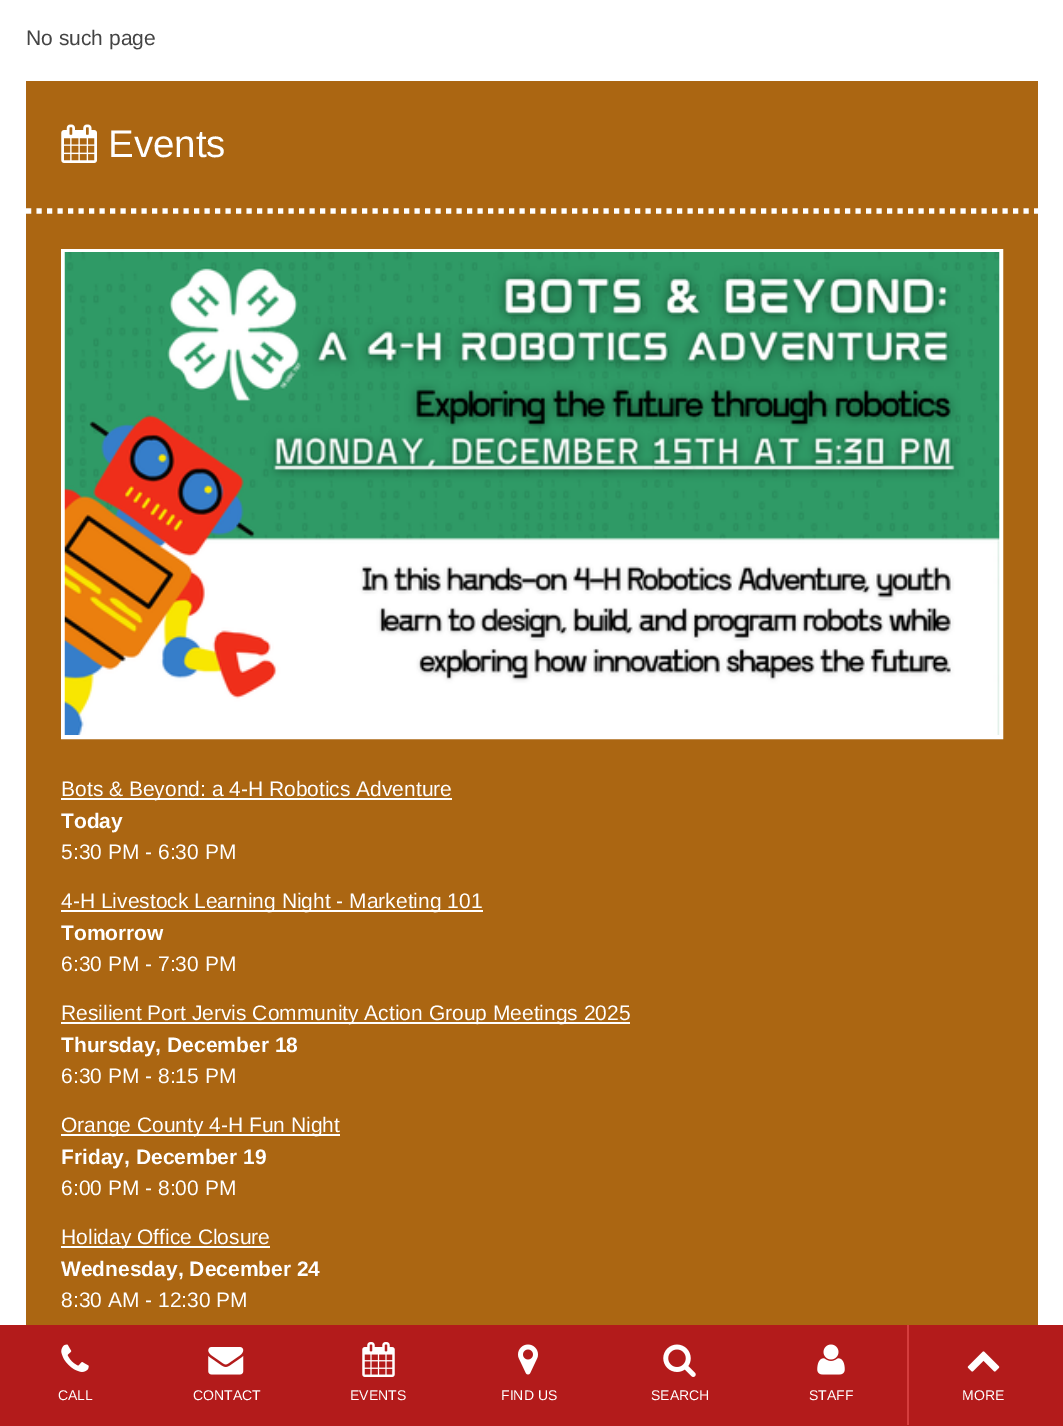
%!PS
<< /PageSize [1063 1426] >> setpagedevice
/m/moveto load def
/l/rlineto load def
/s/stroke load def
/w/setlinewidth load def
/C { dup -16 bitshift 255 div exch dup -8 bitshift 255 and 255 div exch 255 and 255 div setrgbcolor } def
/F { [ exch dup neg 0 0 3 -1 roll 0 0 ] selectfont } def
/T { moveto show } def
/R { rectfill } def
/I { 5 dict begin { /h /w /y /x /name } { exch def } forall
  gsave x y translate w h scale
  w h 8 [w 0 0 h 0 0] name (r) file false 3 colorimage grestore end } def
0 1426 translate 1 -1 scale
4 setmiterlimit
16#FFFFFF C
0 0 1063 1426 R
/LiberationSans-Regular 21 F
16#444444 C
(No such page) 26 45 T
16#AB6612 C
26 81 1012 1244 R
16#FFFFFF C
5.2 w
[5.25 5.25] 0 setdash
26 211 m 1012 0 l s
(1.rgb) 61 124 36 39 I
/LiberationSans-Regular 38.5 F
(Events) 108 157 T
4 w
[] 0 setdash
63 251 938 486 rectstroke
(2.rgb) 64 252 936 483 I
61 798 391 2 R
/LiberationSans-Regular 21 F
(Bots & Beyond: a 4-H Robotics Adventure) 61 796 T
/LiberationSans-Bold 21 F
(Today) 61 828 T
/LiberationSans-Regular 21 F
(5:30 PM - 6:30 PM) 61 859 T
61 910 422 2 R
(4-H Livestock Learning Night - Marketing 101) 61 908 T
/LiberationSans-Bold 21 F
(Tomorrow) 61 940 T
/LiberationSans-Regular 21 F
(6:30 PM - 7:30 PM) 61 971 T
61 1022 569 2 R
(Resilient Port Jervis Community Action Group Meetings 2025) 61 1020 T
/LiberationSans-Bold 21 F
(Thursday, December 18) 61 1052 T
/LiberationSans-Regular 21 F
(6:30 PM - 8:15 PM) 61 1083 T
61 1134 279 2 R
(Orange County 4-H Fun Night) 61 1132 T
/LiberationSans-Bold 21 F
(Friday, December 19) 61 1164 T
/LiberationSans-Regular 21 F
(6:00 PM - 8:00 PM) 61 1195 T
61 1246 209 2 R
(Holiday Office Closure) 61 1244 T
/LiberationSans-Bold 21 F
(Wednesday, December 24) 61 1276 T
/LiberationSans-Regular 21 F
(8:30 AM - 12:30 PM) 61 1307 T
16#B31B1B C
0 1325 1063 101 R
(3.rgb) 61 1344 28 28 I
/LiberationSans-Regular 14 F
16#FFFFFF C
(CALL) 58 1400 T
(4.rgb) 208 1347 36 28 I
(CONTACT) 193 1400 T
(5.rgb) 362 1342 33 35 I
(EVENTS) 350 1400 T
(6.rgb) 518 1344 20 31 I
(FIND US) 501 1400 T
(7.rgb) 663 1344 33 33 I
(SEARCH) 651 1400 T
(8.rgb) 817 1344 28 31 I
(STAFF) 809 1400 T
16#D53D3D C
907 1325 2 100 R
(9.rgb) 967 1351 33 21 I
16#FFFFFF C
(MORE) 962 1400 T
showpage
